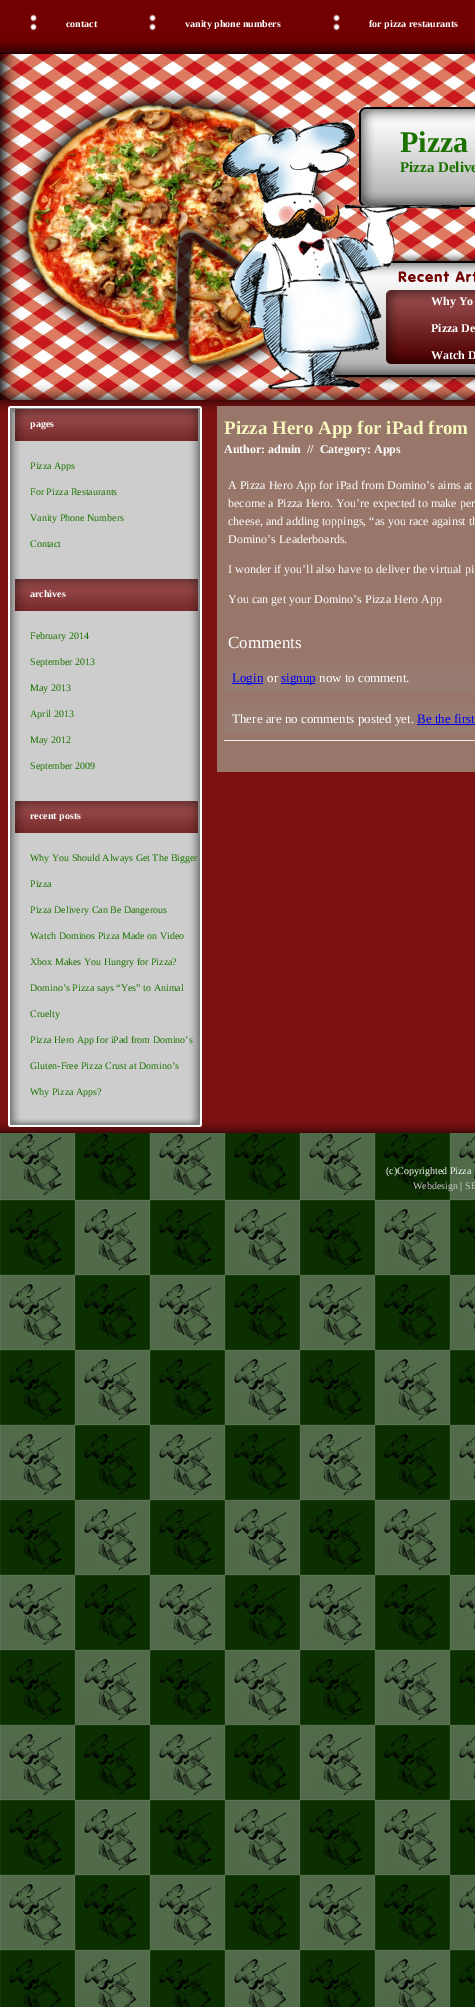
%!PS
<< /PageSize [475 2007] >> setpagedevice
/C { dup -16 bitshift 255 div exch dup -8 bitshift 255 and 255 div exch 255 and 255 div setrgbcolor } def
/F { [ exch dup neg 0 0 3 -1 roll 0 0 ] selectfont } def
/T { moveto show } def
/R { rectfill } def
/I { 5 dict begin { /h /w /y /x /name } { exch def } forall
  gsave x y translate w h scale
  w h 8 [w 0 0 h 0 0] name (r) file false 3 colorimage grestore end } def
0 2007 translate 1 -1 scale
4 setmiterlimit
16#FFFFFF C
0 0 475 2007 R
(1.rgb) 0 1133 475 874 I
(2.rgb) 0 0 475 400 I
(3.rgb) 30 14 7 17 I
/LiberationSerif-Bold 10 F
(contact) 66 27 T
(4.rgb) 149 14 7 17 I
(vanity phone numbers) 185 27 T
(4.rgb) 333 14 7 17 I
(for pizza restaurants) 369 27 T
/LiberationSerif-Bold 30 F
16#1B7200 C
(Pizza) 400 152 T
/LiberationSerif-Bold 15 F
(Pizza Delive) 400 172 T
/LiberationSerif-Bold 12 F
16#FFFFFF C
(Why Yo) 431 305 T
(Pizza De) 431 332 T
(Watch D) 431 359 T
(5.rgb) 0 414 475 705 I
(6.rgb) 0 400 475 14 I
(7.rgb) 0 1119 475 14 I
(8.rgb) 15 409 183 32 I
/LiberationSerif-Bold 10 F
(pages) 30 427 T
/LiberationSerif-Regular 10 F
16#1B7200 C
(Pizza Apps) 30 469 T
(For Pizza Restaurants) 30 495 T
(Vanity Phone Numbers) 30 521 T
(Contact) 30 547 T
(8.rgb) 15 579 183 32 I
/LiberationSerif-Bold 10 F
16#FFFFFF C
(archives) 30 597 T
/LiberationSerif-Regular 10 F
16#1B7200 C
(February 2014) 30 639 T
(September 2013) 30 665 T
(May 2013) 30 691 T
(April 2013) 30 717 T
(May 2012) 30 743 T
(September 2009) 30 769 T
(8.rgb) 15 801 183 32 I
/LiberationSerif-Bold 10 F
16#FFFFFF C
(recent posts) 30 819 T
/LiberationSerif-Regular 10 F
16#1B7200 C
(Why You Should Always Get The Bigger) 30 861 T
(Pizza) 30 887 T
(Pizza Delivery Can Be Dangerous) 30 913 T
(Watch Dominos Pizza Made on Video) 30 939 T
(Xbox Makes You Hungry for Pizza?) 30 965 T
(Domino’s Pizza says “Yes” to Animal) 30 991 T
(Cruelty) 30 1017 T
(Pizza Hero App for iPad from Domino’s) 30 1043 T
(Gluten-Free Pizza Crust at Domino’s) 30 1069 T
(Why Pizza Apps?) 30 1095 T
16#98766A C
217 406 258 366 R
/LiberationSerif-Bold 19 F
16#F7F8BE C
(Pizza Hero App for iPad from) 224 434 T
/LiberationSerif-Bold 12 F
16#FFFFFF C
(Author: admin  //  Category: Apps) 224 453 T
/LiberationSerif-Regular 12 F
(A Pizza Hero App for iPad from Domino’s aims at) 228 489 T
(become a Pizza Hero. You’re expected to make per) 228 507 T
(cheese, and adding toppings, “as you race against th) 228 525 T
(Domino’s Leaderboards.) 228 543 T
(I wonder if you’ll also have to deliver the virtual pi) 228 573 T
(You can get your Domino’s Pizza Hero App) 228 603 T
/LiberationSerif-Regular 17 F
(Comments) 228 648 T
16#987B71 C
224 665 251 27 R
16#0000EE C
232 683 31 1 R
/LiberationSerif-Regular 13 F
(Login) 232 682 T
16#FFFFFF C
(or) 267 682 T
16#0000EE C
281 683 34 1 R
(signup) 281 682 T
16#FFFFFF C
(now to comment.) 319 682 T
16#987B71 C
224 705 251 28 R
16#FFFFFF C
(There are no comments posted yet.) 232 723 T
16#0000EE C
(Be the first) 417 723 T
417 724 58 1 R
16#EEEEEE C
224 740 251 1 R
/LiberationSerif-Regular 10 F
16#FFFFFF C
(\(c\)Copyrighted Pizza) 386 1174 T
16#CCCCCC C
(Webdesign) 413 1189 T
16#FFFFFF C
(|) 460 1189 T
16#CCCCCC C
(SE) 465 1189 T
showpage
